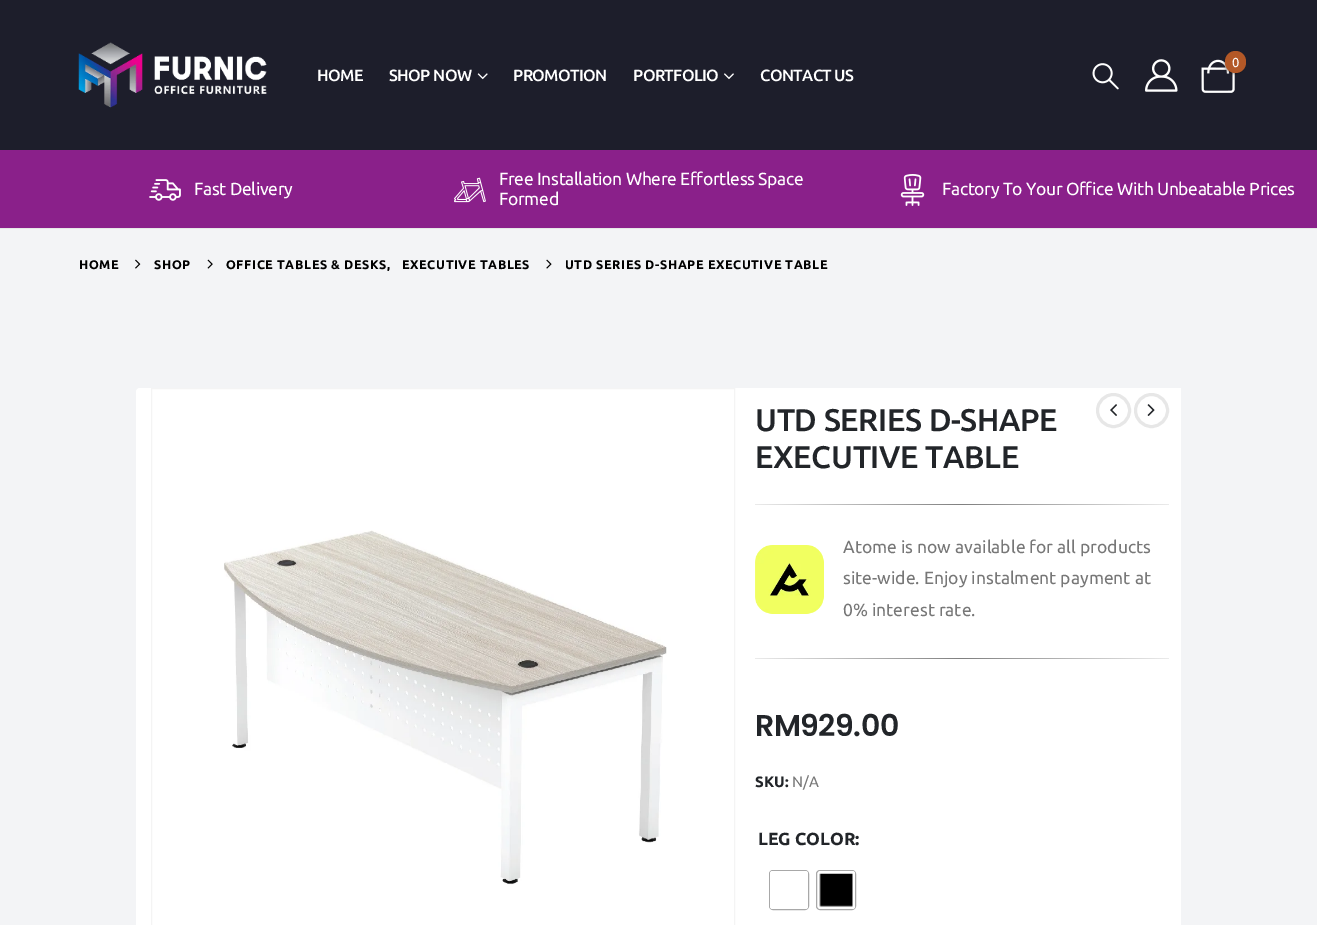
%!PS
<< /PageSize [1317 925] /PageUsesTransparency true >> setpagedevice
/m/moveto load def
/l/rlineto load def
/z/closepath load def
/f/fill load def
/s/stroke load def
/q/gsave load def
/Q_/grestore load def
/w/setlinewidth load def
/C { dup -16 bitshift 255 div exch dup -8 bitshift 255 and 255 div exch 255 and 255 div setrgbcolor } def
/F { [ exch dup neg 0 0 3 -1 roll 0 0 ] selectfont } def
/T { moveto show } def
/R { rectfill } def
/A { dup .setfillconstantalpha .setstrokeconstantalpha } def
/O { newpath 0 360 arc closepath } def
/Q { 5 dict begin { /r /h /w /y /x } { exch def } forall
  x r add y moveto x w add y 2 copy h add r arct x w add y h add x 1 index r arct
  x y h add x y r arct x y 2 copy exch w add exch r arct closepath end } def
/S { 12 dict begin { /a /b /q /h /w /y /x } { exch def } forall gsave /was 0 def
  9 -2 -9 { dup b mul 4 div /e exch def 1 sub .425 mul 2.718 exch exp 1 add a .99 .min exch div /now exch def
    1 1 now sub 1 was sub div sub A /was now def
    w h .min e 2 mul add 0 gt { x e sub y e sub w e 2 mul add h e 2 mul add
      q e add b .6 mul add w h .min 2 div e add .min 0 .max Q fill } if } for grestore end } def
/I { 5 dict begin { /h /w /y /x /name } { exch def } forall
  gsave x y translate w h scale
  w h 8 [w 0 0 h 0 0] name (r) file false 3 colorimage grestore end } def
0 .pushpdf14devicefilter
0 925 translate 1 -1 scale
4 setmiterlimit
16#F3F4F6 C
0 0 1317 925 R
16#1D1E2B C
0 0 1317 150 R
(1.rgb) 1092 63 27 27 I
(2.rgb) 1145 59 33 33 I
(3.rgb) 1201 59 34 34 I
16#000000 C
1224 53 21 21 10.5 1 .3 S
16#B35827 C
1225 51 21 22 10.5 Q f
/Ubuntu-Regular 13 F
16#FFFFFF C
(0) 1232 67 T
(4.rgb) 78 42 189 66 I
/Ubuntu-Medium 16.25 F
317 81 m -.6 0 (HOME) ashow
389 81 m -.6 0 (SHOP NOW) ashow
(5.rgb) 477 73 11 7 I
513 81 m -.6 0 (PROMOTION) ashow
633 81 m -.6 0 (PORTFOLIO) ashow
(6.rgb) 724 73 10 7 I
760 81 m -.6 0 (CONTACT US) ashow
16#8A208A C
0 150 1317 78 R
(7.rgb) 149 179 32 22 I
/Ubuntu-Regular 17.5 F
16#FFFFFF C
194 195 m -.35 0 (Fast Delivery) ashow
(8.rgb) 454 177 32 26 I
499 185 m -.35 0 (Free Installation Where Effortless Space) ashow
499 205 m -.35 0 (Formed) ashow
(9.rgb) 900 174 25 32 I
942 195 m -.35 0 (Factory To Your Office With Unbeatable Prices) ashow
16#E7E7E7 C
0 228 1317 1 R
/Ubuntu-Bold 12.5 F
16#000000 C
79 269 m .6 0 (HOME) ashow
(10.rgb) 135 259 6 10 I
154 269 m .6 0 (SHOP) ashow
(11.rgb) 207 259 6 10 I
226 269 m .6 0 (OFFICE TABLES & DESKS,) ashow
402 269 m .6 0 (EXECUTIVE TABLES) ashow
(12.rgb) 546 259 6 10 I
565 269 m .6 0 (UTD SERIES D-SHAPE EXECUTIVE TABLE) ashow
16#FFFFFF C
136 388 613 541 4 Q f
16#F4F4F4 C
151.5 388.5 583 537 rectstroke
(13.rgb) 224 530 443 355 I
16#FFFFFF C
746 388 435 537 R
/Ubuntu-Medium 31.25 F
16#222529 C
755 431 m -.3 0 (UTD SERIES D-SHAPE) ashow
755 468 m -.3 0 (EXECUTIVE TABLE) ashow
16#E7E7E7 C
3 w
1113.5 410.5 16 O s
(14.rgb) 1110 404 7 12 I
1151.5 410.5 16 O s
(15.rgb) 1147 404 8 12 I
q 755 504 m 414 0 l 0 1 l -414 0 l z clip newpath
<< /ShadingType 2 /ColorSpace /DeviceRGB /Coords [755 504 1169 504] /Extend [true true] /Function << /FunctionType 3 /Domain [0 1] /Functions [<< /FunctionType 2 /Domain [0 1] /C0 [.922 .922 .922] /C1 [.502 .502 .502] /N 1 >> << /FunctionType 2 /Domain [0 1] /C0 [.502 .502 .502] /C1 [.922 .922 .922] /N 1 >>] /Bounds [.5] /Encode [0 1 0 1] >> >> shfill Q_
(16.rgb) 755 545 69 69 I
/Ubuntu-Regular 17.5 F
16#777777 C
(Atome is now available for all products) 843 553 T
(site-wide. Enjoy instalment payment at) 843 584 T
(0% interest rate.) 843 616 T
q 755 658 m 414 0 l 0 1 l -414 0 l z clip newpath
<< /ShadingType 2 /ColorSpace /DeviceRGB /Coords [755 658 1169 658] /Extend [true true] /Function << /FunctionType 3 /Domain [0 1] /Functions [<< /FunctionType 2 /Domain [0 1] /C0 [.922 .922 .922] /C1 [.502 .502 .502] /N 1 >> << /FunctionType 2 /Domain [0 1] /C0 [.502 .502 .502] /C1 [.922 .922 .922] /N 1 >>] /Bounds [.5] /Encode [0 1 0 1] >> >> shfill Q_
/Poppins-SemiBold 30 F
16#222529 C
755 736 m -.5 0 (RM929.00) ashow
/Ubuntu-Bold 15 F
(SKU:) 755 787 T
/Ubuntu-Regular 15 F
16#777777 C
(N/A) 792 787 T
/Ubuntu-Bold 17.5 F
16#222529 C
(LEG COLOR:) 758 845 T
16#A8A8A8 C
1 w
769.5 870.5 39 39 3.5 Q s
16#FFFFFF C
770 871 38 38 2.5 Q f
16#A8A8A8 C
816.5 870.5 39 39 3.5 Q s
16#FFFFFF C
818 871 37 38 2.5 Q f
(17.rgb) 819 873 34 34 I
.poppdf14devicefilter showpage
